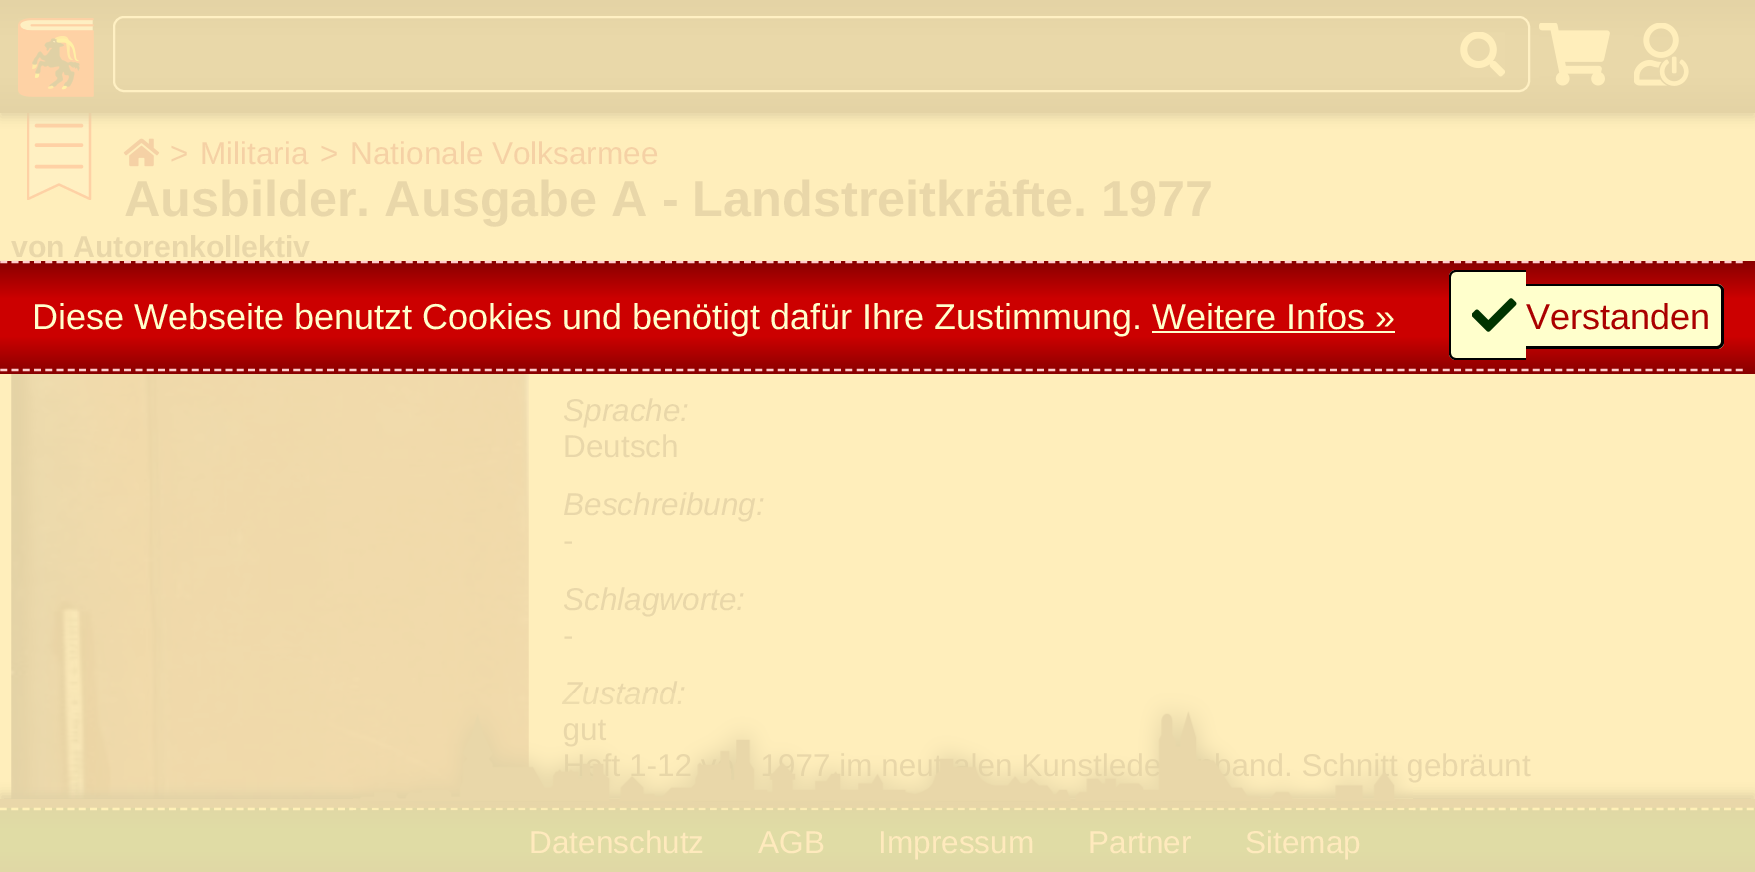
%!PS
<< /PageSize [1755 872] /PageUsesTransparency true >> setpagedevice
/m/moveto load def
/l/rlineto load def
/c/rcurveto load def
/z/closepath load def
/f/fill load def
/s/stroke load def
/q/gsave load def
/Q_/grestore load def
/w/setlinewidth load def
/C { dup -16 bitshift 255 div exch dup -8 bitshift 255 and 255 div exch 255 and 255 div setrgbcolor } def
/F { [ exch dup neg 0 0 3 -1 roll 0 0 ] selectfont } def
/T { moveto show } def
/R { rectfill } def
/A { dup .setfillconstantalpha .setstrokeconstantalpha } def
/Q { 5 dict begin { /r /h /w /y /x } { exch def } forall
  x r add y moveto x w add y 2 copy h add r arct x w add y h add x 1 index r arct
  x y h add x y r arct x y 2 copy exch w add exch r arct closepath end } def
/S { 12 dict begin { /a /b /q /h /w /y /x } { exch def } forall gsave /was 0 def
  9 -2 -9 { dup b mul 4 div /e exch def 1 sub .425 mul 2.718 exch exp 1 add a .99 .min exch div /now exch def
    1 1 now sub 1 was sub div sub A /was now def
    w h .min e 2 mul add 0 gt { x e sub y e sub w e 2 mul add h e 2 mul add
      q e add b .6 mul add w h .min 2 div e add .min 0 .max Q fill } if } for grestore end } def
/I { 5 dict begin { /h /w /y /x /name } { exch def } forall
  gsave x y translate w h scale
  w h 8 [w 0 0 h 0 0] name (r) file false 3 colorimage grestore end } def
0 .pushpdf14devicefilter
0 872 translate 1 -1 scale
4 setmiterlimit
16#FFEEBB C
0 0 1755 872 R
16#FFF0C2 C
28 111 m 62 0 l 0 88 l -31 -14 l -31 14 l z f
q
27 110 65 90 rectclip
16#FED1A5 C
2.2 w
1 setlinejoin
28 111.5 m 62 0 l 0 87.5 l -31 -14.5 l -31 14.5 l z s
Q_
16#FFD1A5 C
3.5 w
1 setlinecap
1 setlinejoin
36.5 125.5 m 45 0 l 36.5 145 m 45 0 l 36.5 166.5 m 45 0 l s
16#E0D1A5 C
0 5 1755 112 0 5.5 1 S
q 0 0 m 1755 0 l 0 113 l -1755 0 l z clip newpath
<< /ShadingType 2 /ColorSpace /DeviceRGB /Coords [878 0 878 113] /Extend [true true] /Function << /FunctionType 3 /Domain [0 1] /Functions [<< /FunctionType 2 /Domain [0 1] /C0 [.894 .827 .647] /C1 [.914 .847 .663] /N 1 >> << /FunctionType 2 /Domain [0 1] /C0 [.914 .847 .663] /C1 [.914 .847 .663] /N 1 >> << /FunctionType 2 /Domain [0 1] /C0 [.914 .847 .663] /C1 [.894 .827 .647] /N 1 >>] /Bounds [.33 .67] /Encode [0 1 0 1 0 1] >> >> shfill Q_
(1.rgb) 18 18 76 79 I
16#FFF0C3 C
2 w
0 setlinecap
0 setlinejoin
114 17 1415 74 10 Q s
(2.rgb) 1460 32 45 45 I
(3.rgb) 1539 23 71 63 I
(4.rgb) 1634 23 55 63 I
(5.rgb) 123 138 37 29 I
/LiberationSans-Regular 31.5 F
16#F5D1A5 C
(>) 170 164 T
(Militaria) 200 164 T
(>) 320 164 T
(Nationale Volksarmee) 350 164 T
/LiberationSans-Bold 50.4 F
16#E9D7A9 C
(Ausbilder. Ausgabe A - Landstreitkräfte. 1977) 124 216 T
/LiberationSans-Bold 30.25 F
(von Autorenkollektiv) 11 257 T
(6.rgb) 11 374 518 425 I
/LiberationSans-Italic 31.5 F
(Sprache:) 563 421 T
/LiberationSans-Regular 31.5 F
(Deutsch) 563 457 T
/LiberationSans-Italic 31.5 F
(Beschreibung:) 563 515 T
/LiberationSans-Regular 31.5 F
(-) 563 551 T
/LiberationSans-Italic 31.5 F
(Schlagworte:) 563 610 T
/LiberationSans-Regular 31.5 F
(-) 563 646 T
/LiberationSans-Italic 31.5 F
(Zustand:) 563 704 T
/LiberationSans-Regular 31.5 F
(gut) 563 740 T
(ft 1-12) 603 776 T
(77 im neu) 795 776 T
(en Kunstlede) 977 776 T
(and. Schnitt gebräunt) 1231 776 T
16#E0D1A5 C
0 794 1755 75 0 5.5 1 S
q 0 808 m 1755 0 l 0 64 l -1755 0 l z clip newpath
<< /ShadingType 2 /ColorSpace /DeviceRGB /Coords [878 808 878 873] /Extend [true true] /Function << /FunctionType 3 /Domain [0 1] /Functions [<< /FunctionType 2 /Domain [0 1] /C0 [.878 .847 .647] /C1 [.878 .863 .647] /N 1 >> << /FunctionType 2 /Domain [0 1] /C0 [.878 .863 .647] /C1 [.878 .863 .647] /N 1 >> << /FunctionType 2 /Domain [0 1] /C0 [.878 .863 .647] /C1 [.878 .847 .647] /N 1 >>] /Bounds [.33 .67] /Encode [0 1 0 1 0 1] >> >> shfill Q_
16#E9D7A9 C
0 799 1755 9 R
16#FFF0B7 C
2.2 w
[6.75 4.52] 0 setdash
0 809 m 1755 0 l s
(7.rgb) 353 693 1060 119 I
16#FFEABD C
(Datenschutz) 529 853 T
(AGB) 758 853 T
(Impressum) 878 853 T
(Partner) 1088 853 T
(Sitemap) 1245 853 T
q 0 261 m 1755 0 l 0 113 l -1755 0 l z clip newpath
<< /ShadingType 2 /ColorSpace /DeviceRGB /Coords [878 261 878 374] /Extend [true true] /Function << /FunctionType 3 /Domain [0 1] /Functions [<< /FunctionType 2 /Domain [0 1] /C0 [.533 0 0] /C1 [.8 0 0] /N 1 >> << /FunctionType 2 /Domain [0 1] /C0 [.8 0 0] /C1 [.8 0 0] /N 1 >> << /FunctionType 2 /Domain [0 1] /C0 [.8 0 0] /C1 [.533 0 0] /N 1 >>] /Bounds [.33 .67] /Encode [0 1 0 1 0 1] >> >> shfill Q_
16#FFCCCC C
-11 262 m 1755 0 l s
/LiberationSans-Regular 36 F
16#FFFFCC C
(Diese Webseite benutzt Cookies und benötigt dafür Ihre Zustimmung. Weitere Infos ») 32 329 T
1456 270 m 70 0 l 0 90 l -70 0 l -4 0 -7 -3 -7 -7 c 0 -76 l 0 -4 3 -7 7 -7 c z f
16#000000 C
1456 270 m 70 0 l 0 90 l -70 0 l -4 0 -7 -3 -7 -7 c 0 -76 l 0 -4 3 -7 7 -7 c z 1456 272 m 70 0 l 0 86 l -70 0 l -3 0 -5 -2 -5 -5 c 0 -76 l 0 -3 2 -5 5 -5 c z eofill
16#FFFFCC C
1526 284 m 191 0 l 4 0 7 3 7 7 c 0 51 l 0 4 -3 7 -7 7 c -191 0 l z f
16#000000 C
1526 284 m 191 0 l 3 0 7 3 7 6 c 0 52 l 0 4 -4 7 -7 7 c -191 0 l z 1526 286 m 191 0 l 2 0 4 2 4 4 c 0 52 l 0 2 -2 4 -4 4 c -191 0 l z eofill
(8.rgb) 1472 298 45 34 I
16#AA0000 C
(Verstanden) 1526 329 T
16#FFFFCC C
1152 331 243 2 R
16#FFCCCC C
-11 370 m 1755 0 l s
.poppdf14devicefilter showpage
